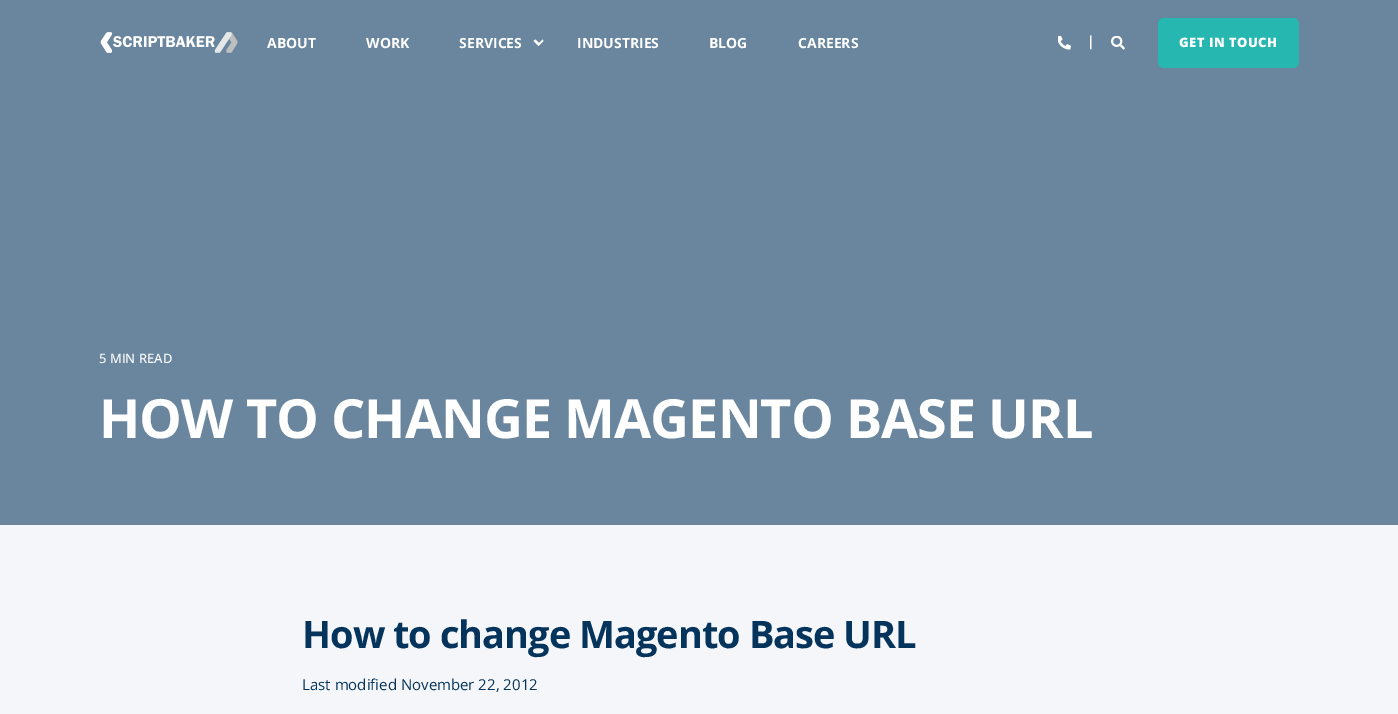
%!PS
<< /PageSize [1398 714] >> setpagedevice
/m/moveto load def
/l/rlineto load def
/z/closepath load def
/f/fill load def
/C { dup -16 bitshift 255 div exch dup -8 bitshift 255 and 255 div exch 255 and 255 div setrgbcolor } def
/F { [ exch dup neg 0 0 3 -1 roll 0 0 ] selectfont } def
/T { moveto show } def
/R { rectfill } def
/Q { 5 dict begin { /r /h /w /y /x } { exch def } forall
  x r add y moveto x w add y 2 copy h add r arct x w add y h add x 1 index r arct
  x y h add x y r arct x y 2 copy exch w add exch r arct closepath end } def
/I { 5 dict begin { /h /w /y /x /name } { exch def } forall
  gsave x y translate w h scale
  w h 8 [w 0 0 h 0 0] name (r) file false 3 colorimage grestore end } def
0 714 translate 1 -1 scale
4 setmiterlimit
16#F4F6FA C
0 0 1398 714 R
16#69869E C
0 0 1398 525 R
(1.rgb) 100 32 138 21 I
/OpenSans-Bold 14 F
16#FFFFFF C
(ABOUT) 267 48 T
(WORK) 366 48 T
(SERVICES) 459 48 T
543.5 41 m -1 -1.5 l -3.5 3.5 l -3.5 -3.5 l -2 1.5 l 5 5 l z f
(INDUSTRIES) 577 48 T
(BLOG) 709 48 T
(CAREERS) 798 48 T
(2.rgb) 1058 36 13 14 I
(|) 1087 46 T
(3.rgb) 1111 36 14 14 I
16#25B7B0 C
1158 18 141 50 6 Q f
/OpenSans-ExtraBold 13 F
16#FFFFFF C
1179 47 m .5 0 (GET IN TOUCH) ashow
/OpenSans-Medium 13 F
(5 MIN READ) 99 363 T
/OpenSans-Bold 54 F
99 438 m -1 0 (HOW TO CHANGE MAGENTO BASE URL) ashow
/OpenSans-Bold 38 F
16#04345C C
302 648 m -1 0 (How to change Magento Base URL) ashow
/OpenSans-Regular 15 F
(Last modified November 22, 2012) 302 690 T
showpage
